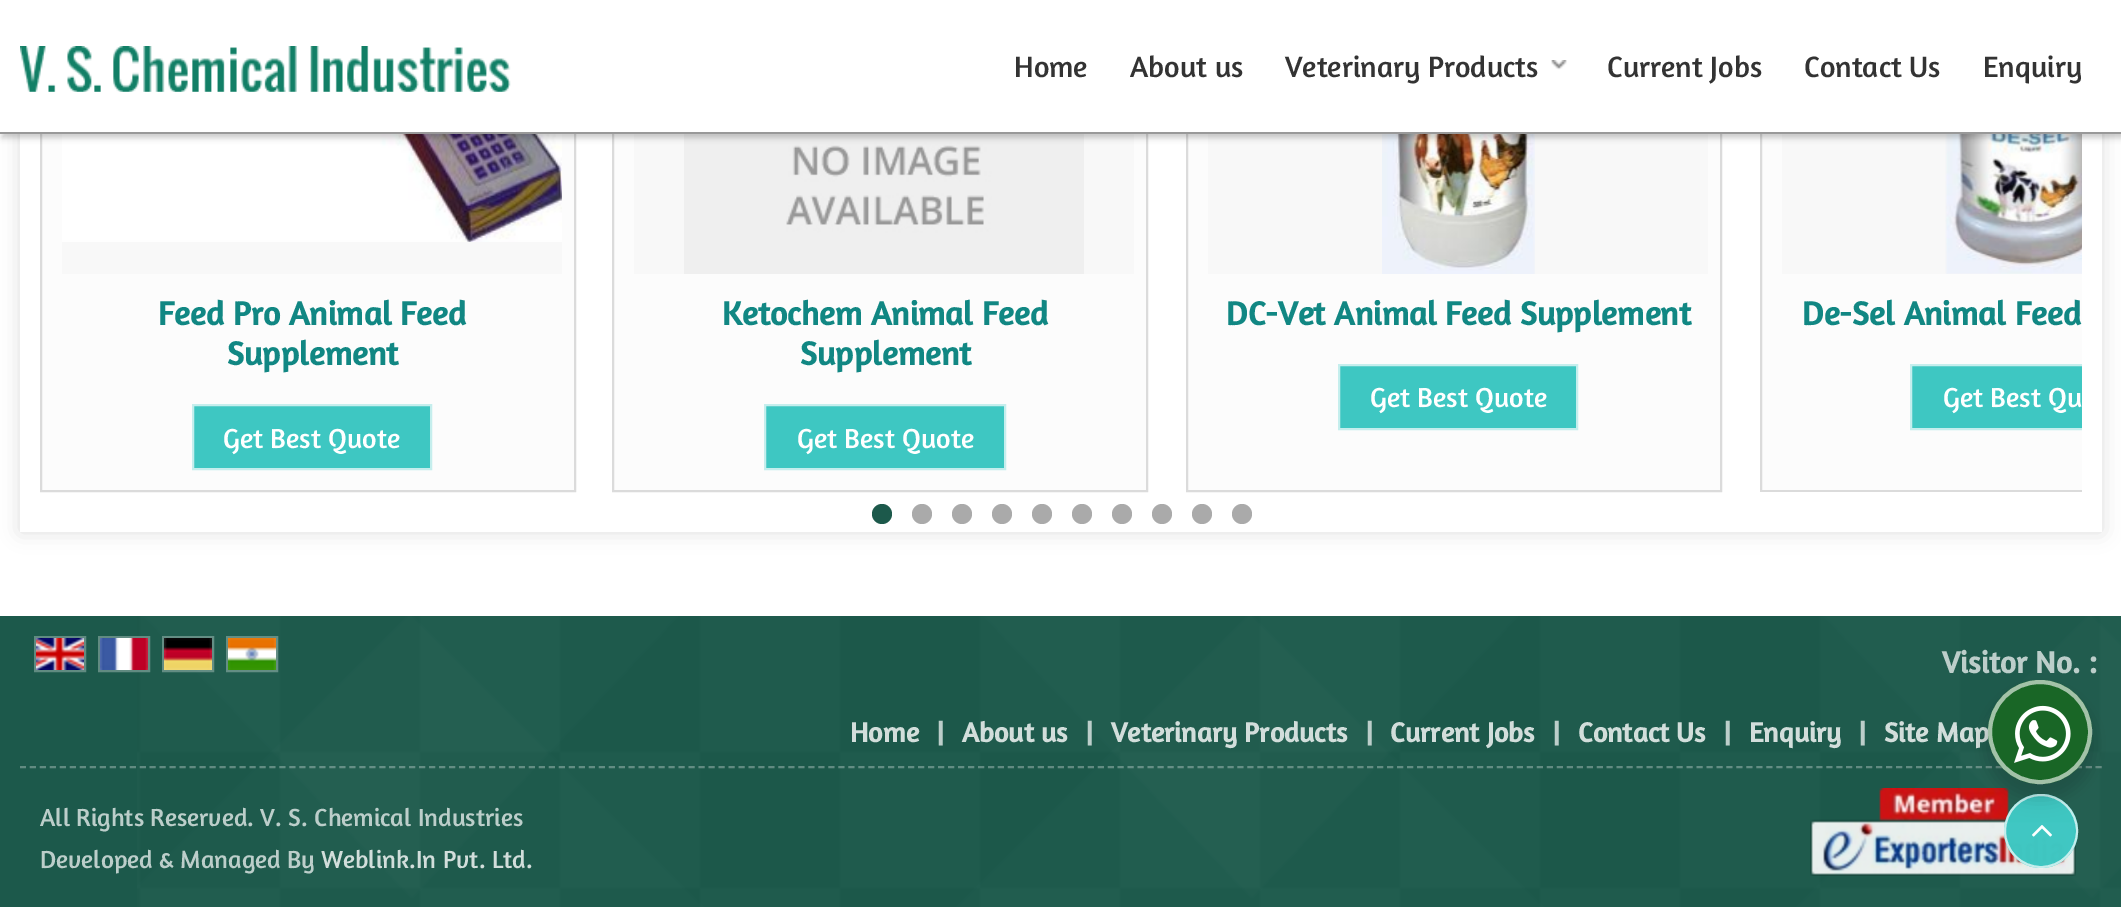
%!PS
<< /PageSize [2121 907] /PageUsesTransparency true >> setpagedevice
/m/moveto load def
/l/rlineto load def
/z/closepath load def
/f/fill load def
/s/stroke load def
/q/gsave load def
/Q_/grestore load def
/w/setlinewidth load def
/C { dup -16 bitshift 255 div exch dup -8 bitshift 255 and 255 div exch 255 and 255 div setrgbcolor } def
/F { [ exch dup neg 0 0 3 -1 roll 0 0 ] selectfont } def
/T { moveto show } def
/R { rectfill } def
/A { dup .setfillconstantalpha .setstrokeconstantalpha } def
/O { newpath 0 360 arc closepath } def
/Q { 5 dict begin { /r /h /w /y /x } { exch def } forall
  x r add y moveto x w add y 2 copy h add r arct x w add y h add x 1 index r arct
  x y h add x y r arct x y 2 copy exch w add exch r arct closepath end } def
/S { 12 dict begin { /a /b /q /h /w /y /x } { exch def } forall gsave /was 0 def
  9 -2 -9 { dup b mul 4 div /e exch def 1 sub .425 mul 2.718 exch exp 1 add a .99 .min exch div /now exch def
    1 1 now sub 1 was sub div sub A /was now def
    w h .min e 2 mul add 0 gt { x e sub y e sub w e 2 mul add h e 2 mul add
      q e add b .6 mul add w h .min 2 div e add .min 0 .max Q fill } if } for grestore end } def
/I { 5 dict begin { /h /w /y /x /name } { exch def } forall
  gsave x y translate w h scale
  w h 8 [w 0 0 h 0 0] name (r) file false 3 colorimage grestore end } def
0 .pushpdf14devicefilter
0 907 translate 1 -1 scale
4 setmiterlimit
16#FFFFFF C
0 0 2121 907 R
q
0 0 m 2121 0 l 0 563 l -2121 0 l z 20 -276 m 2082 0 l 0 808 l -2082 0 l z eoclip newpath
16#CCCCCC C
20 -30 2082 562 0 10 .67 S
Q_
16#FCFCFC C
42 134 532 356 R
16#DBDBDB C
2 w
41 -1 534 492 rectstroke
16#F8F8F8 C
62 240 500 34 R
(3.rgb) 62 134 500 108 I
16#FCFCFC C
614 134 532 356 R
16#DBDBDB C
613 -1 534 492 rectstroke
16#F8F8F8 C
634 134 500 140 R
(4.rgb) 684 134 400 140 I
16#FCFCFC C
1188 134 532 356 R
16#DBDBDB C
1187 -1 534 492 rectstroke
16#F8F8F8 C
1208 134 500 140 R
(5.rgb) 1382 134 153 140 I
16#FCFCFC C
1762 134 320 356 R
q
40 0 2042 492 rectclip
16#DBDBDB C
1761 -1 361 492 rectstroke
Q_
16#F8F8F8 C
1782 134 300 140 R
(6.rgb) 1945 134 137 140 I
16#000000 C
2 4 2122 134 0 3 .2 S
16#FFFFFF C
0 0 2121 132 R
16#999999 C
0 132 2121 2 R
(1.rgb) 20 46 491 46 I
/Amaranth-Regular 30 F
16#333333 C
(Home) 1014 77 T
(About us) 1130 77 T
(Veterinary Products) 1285 77 T
(2.rgb) 1551 60 16 10 I
(Current Jobs) 1607 77 T
(Contact Us) 1804 77 T
(Enquiry) 1983 77 T
/Amaranth-Bold 33.6 F
16#118783 C
(Feed Pro Animal Feed) 158 325 T
(Supplement) 227 365 T
16#3EC7C2 C
193 405 m 238 0 l 0 64 l -238 0 l z q f Q_
16#C5EEED C
s
/Amaranth-Regular 28 F
16#FFFFFF C
(Get Best Quote) 223 448 T
/Amaranth-Bold 33.6 F
16#118783 C
(Ketochem Animal Feed) 722 325 T
(Supplement) 800 365 T
16#3EC7C2 C
765 405 m 240 0 l 0 64 l -240 0 l z q f Q_
16#C5EEED C
s
/Amaranth-Regular 28 F
16#FFFFFF C
(Get Best Quote) 797 448 T
/Amaranth-Bold 33.6 F
16#118783 C
(DC-Vet Animal Feed Supplement) 1226 325 T
16#3EC7C2 C
1339 365 m 238 0 l 0 64 l -238 0 l z q f Q_
16#C5EEED C
s
/Amaranth-Regular 28 F
16#FFFFFF C
(Get Best Quote) 1370 407 T
/Amaranth-Bold 33.6 F
16#118783 C
(De-Sel Animal Feed) 1802 325 T
16#3EC7C2 C
1912 366 170 62 R
q
40 0 2042 492 rectclip
16#C5EEED C
1911 365 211 64 rectstroke
Q_
/Amaranth-Regular 28 F
16#FFFFFF C
(Get Best Qu) 1943 407 T
16#1C594B C
882 514 10 O f
16#AAAAAA C
922 514 10 O f
962 514 10 O f
1002 514 10 O f
1042 514 10 O f
1082 514 10 O f
1122 514 10 O f
1162 514 10 O f
1202 514 10 O f
1242 514 10 O f
16#1C594B C
0 616 2121 291 R
(7.rgb) 137 616 1984 291 I
16#608B81 C
35 637 50 34 rectstroke
0.3 A
16#FFFFFF C
99 637 50 34 rectstroke
163 637 50 34 rectstroke
1 A
16#648E84 C
227 637 50 34 rectstroke
(8.rgb) 36 638 48 32 I
(9.rgb) 100 638 48 32 I
(10.rgb) 164 638 48 32 I
(11.rgb) 228 638 48 32 I
/Amaranth-Bold 31 F
16#BCCECA C
(Visitor No. :) 1942 673 T
/Amaranth-Bold 28 F
16#D2DEDB C
(Home) 850 742 T
16#BCCECA C
(|) 936 742 T
16#D2DEDB C
(About us) 962 742 T
16#BCCECA C
(|) 1085 742 T
16#D2DEDB C
(Veterinary Products) 1111 742 T
16#BCCECA C
(|) 1365 742 T
16#D2DEDB C
(Current Jobs) 1390 742 T
16#BCCECA C
(|) 1552 742 T
16#D2DEDB C
(Contact Us) 1578 742 T
16#BCCECA C
(|) 1723 742 T
16#D2DEDB C
(Enquiry) 1749 742 T
16#BCCECA C
(|) 1858 742 T
16#D2DEDB C
(Site Map) 1884 742 T
0.3 A
16#FFFFFF C
[6 3.98] 0 setdash
20 767 m 2082 0 l s
/Amaranth-Regular 25.25 F
1 A
16#BCCECA C
(All Rights Reserved. V. S. Chemical Industries) 40 826 T
(Developed & Managed By) 40 868 T
16#D2DEDB C
(Weblink.In Pvt. Ltd.) 321 868 T
(12.rgb) 1810 788 266 88 I
0.99 A
16#3EC7C2 C
2041 831 37 O f
0.69 A
16#FFFFFF C
[] 0 setdash
2041 831 36 O s
1 A
16#000000 C
1984 688 112 112 56 8 .14 S
16#196626 C
2040 732 52 O f
0.6 A
16#FFFFFF C
4 w
2040 732 50 O s
1 A
(13.rgb) 2014 705 57 58 I
(14.rgb) 2032 825 20 12 I
.poppdf14devicefilter showpage
